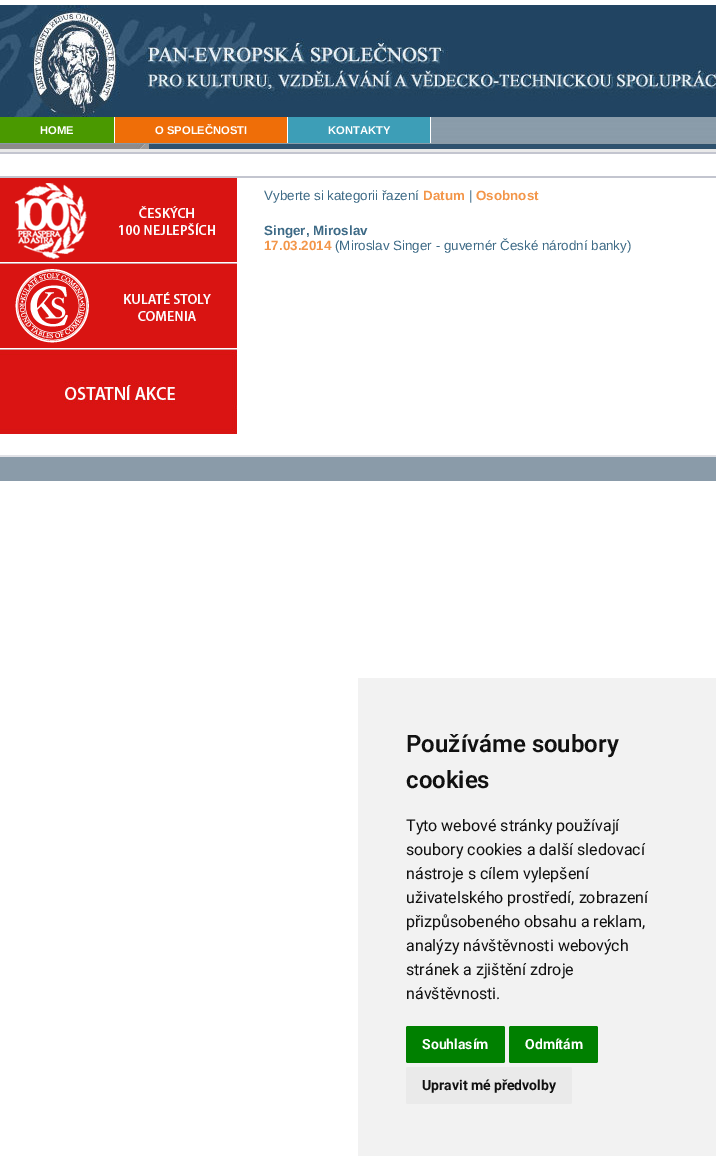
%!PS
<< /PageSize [716 1156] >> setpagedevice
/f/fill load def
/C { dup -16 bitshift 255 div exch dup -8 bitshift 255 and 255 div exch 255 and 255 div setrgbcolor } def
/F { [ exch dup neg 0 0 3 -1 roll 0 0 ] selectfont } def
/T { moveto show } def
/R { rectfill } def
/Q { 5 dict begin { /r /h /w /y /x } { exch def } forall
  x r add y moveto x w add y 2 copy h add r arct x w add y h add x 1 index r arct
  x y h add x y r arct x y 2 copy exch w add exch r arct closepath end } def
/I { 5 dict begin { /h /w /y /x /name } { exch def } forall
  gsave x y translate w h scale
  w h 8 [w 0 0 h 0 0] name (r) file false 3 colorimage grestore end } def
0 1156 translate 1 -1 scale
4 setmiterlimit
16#FFFFFF C
0 0 716 1156 R
(1.rgb) 0 5 716 147 I
16#4A9900 C
0 117 114 26 R
16#FFFFFF C
114 117 1 26 R
/LiberationSans-Bold 11.25 F
(HOME) 40 134 T
16#EF6E08 C
115 117 172 26 R
16#FFFFFF C
287 117 1 26 R
(O SPOLEČNOSTI) 155 134 T
16#3D9EB7 C
288 117 142 26 R
16#FFFFFF C
430 117 1 26 R
(KONTAKTY) 328 134 T
16#C3C5CF C
0 152 716 2 R
0 176 716 2 R
(2.rgb) 0 178 237 84 I
(3.rgb) 0 263 237 85 I
(4.rgb) 0 349 237 85 I
/LiberationSans-Regular 13.4 F
16#3D6A86 C
(Vyberte si kategorii řazení) 264 200 T
/LiberationSans-Bold 13.4 F
16#F39649 C
(Datum) 423 200 T
/LiberationSans-Regular 13.4 F
16#3D6A86 C
(|) 469 200 T
/LiberationSans-Bold 13.4 F
16#F39649 C
(Osobnost) 476 200 T
16#3D6A86 C
(Singer, Miroslav) 264 235 T
16#F39649 C
(17.03.2014) 264 250 T
/LiberationSans-Regular 13.4 F
16#3D6A86 C
(\(Miroslav Singer - guvernér České národní banky\)) 335 250 T
16#8A9BA9 C
0 457 716 24 R
16#E1E2E7 C
0 455 716 2 R
16#F2F2F2 C
358 678 358 478 R
/Roboto-SemiBold 24 F
16#111111 C
(Používáme soubory) 406 752 T
(cookies) 406 788 T
/Roboto-Regular 16 F
(Tyto webové stránky používají) 406 831 T
(soubory cookies a další sledovací) 406 855 T
(nástroje s cílem vylepšení) 406 879 T
(uživatelského prostředí, zobrazení) 406 903 T
(přizpůsobeného obsahu a reklam,) 406 927 T
(analýzy návštěvnosti webových) 406 951 T
(stránek a zjištění zdroje) 406 975 T
(návštěvnosti.) 406 999 T
16#008000 C
406 1026 99 37 2 Q f
/Roboto-Bold 14 F
16#FFFFFF C
(Souhlasím) 422 1049 T
16#008000 C
509 1026 89 37 2 Q f
16#FFFFFF C
(Odmítám) 525 1049 T
16#EAEAEA C
406 1067 166 37 2 Q f
16#111111 C
(Upravit mé předvolby) 422 1090 T
showpage
